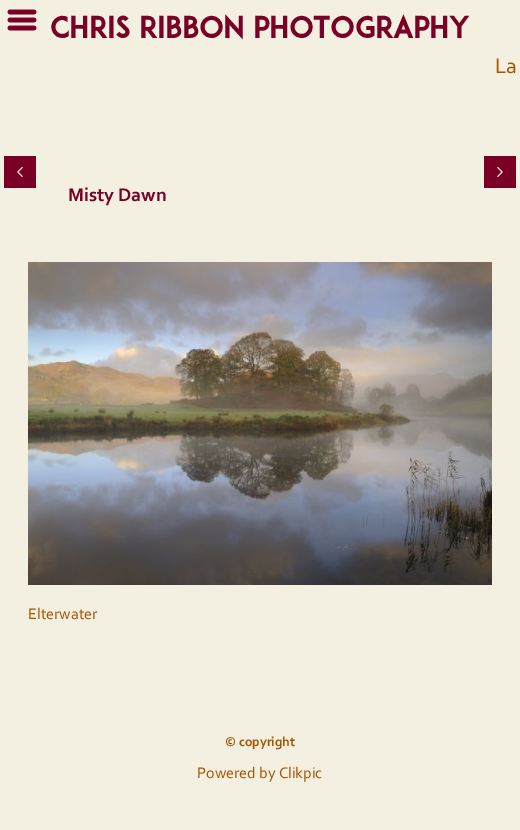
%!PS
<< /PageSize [520 830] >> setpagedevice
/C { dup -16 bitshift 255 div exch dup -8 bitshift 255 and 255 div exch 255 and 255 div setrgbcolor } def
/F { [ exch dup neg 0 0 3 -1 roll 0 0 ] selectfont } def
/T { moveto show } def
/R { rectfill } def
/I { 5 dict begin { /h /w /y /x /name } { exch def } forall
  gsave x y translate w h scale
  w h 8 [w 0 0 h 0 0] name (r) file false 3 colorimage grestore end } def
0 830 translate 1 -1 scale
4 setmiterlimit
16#F3F0E1 C
0 0 520 830 R
(1.rgb) 7 9 30 22 I
/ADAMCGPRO-Bold 28.75 F
16#7A0026 C
(Chris Ribbon Photography) 50 38 T
/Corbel-Regular 22 F
16#A65601 C
(La) 495 73 T
16#7A0026 C
4 156 32 32 R
(2.rgb) 17 167 6 10 I
484 156 32 32 R
(3.rgb) 497 167 6 10 I
/Corbel-Bold 19.25 F
(Misty Dawn) 68 201 T
(4.rgb) 28 262 464 323 I
/Corbel-Regular 16 F
16#A65601 C
(Elterwater) 28 619 T
/Corbel-Bold 13.5 F
(© copyright) 225 746 T
/Corbel-Regular 16 F
(Powered by Clikpic) 197 778 T
showpage
